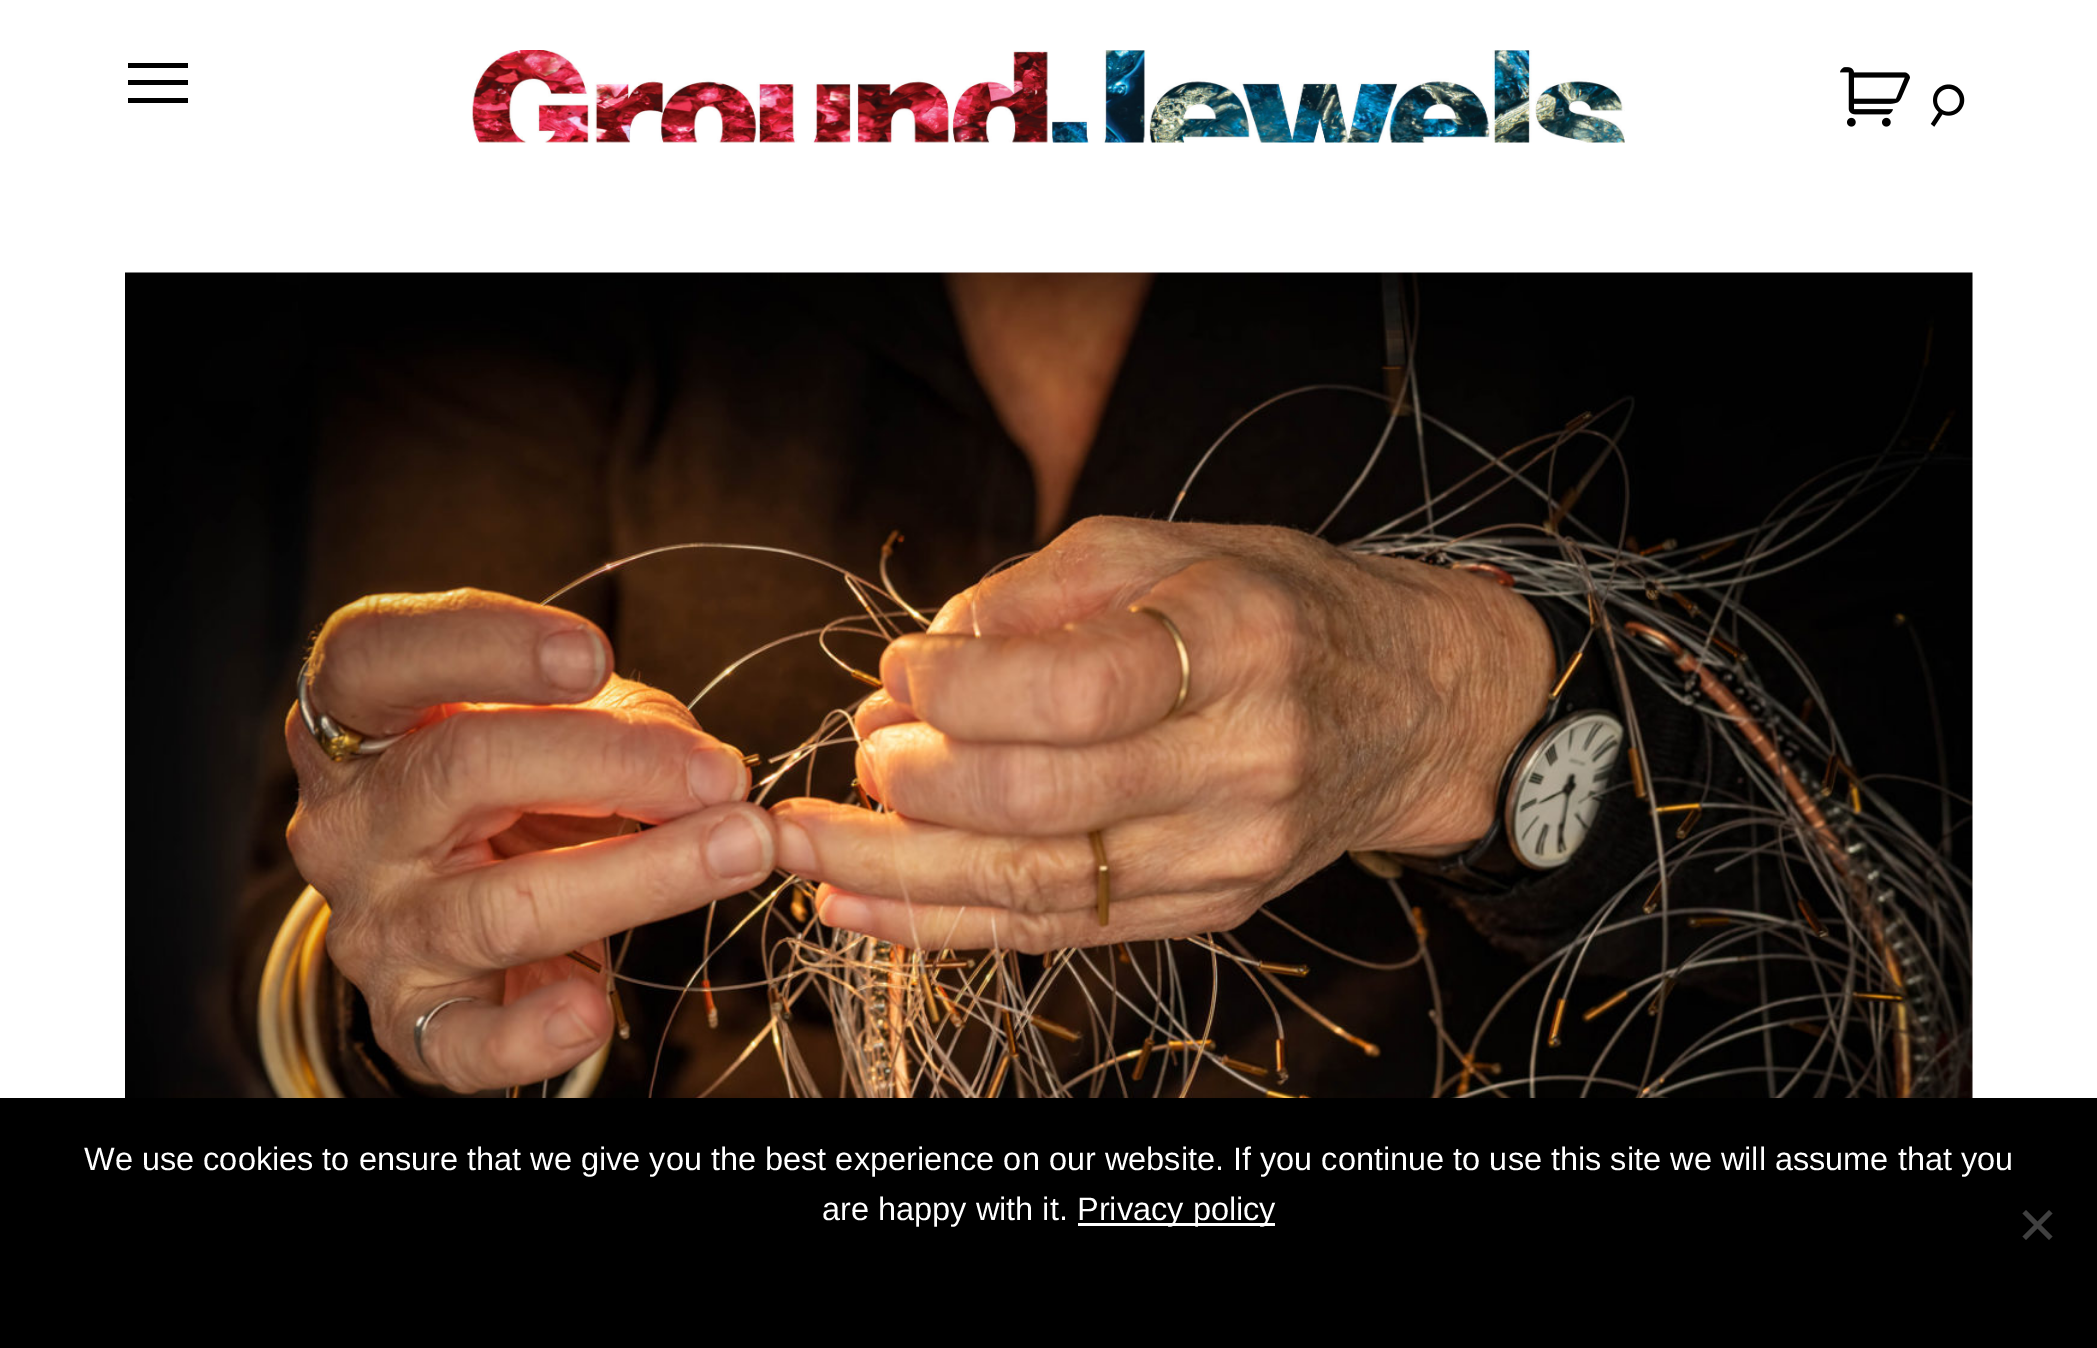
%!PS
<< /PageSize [2097 1348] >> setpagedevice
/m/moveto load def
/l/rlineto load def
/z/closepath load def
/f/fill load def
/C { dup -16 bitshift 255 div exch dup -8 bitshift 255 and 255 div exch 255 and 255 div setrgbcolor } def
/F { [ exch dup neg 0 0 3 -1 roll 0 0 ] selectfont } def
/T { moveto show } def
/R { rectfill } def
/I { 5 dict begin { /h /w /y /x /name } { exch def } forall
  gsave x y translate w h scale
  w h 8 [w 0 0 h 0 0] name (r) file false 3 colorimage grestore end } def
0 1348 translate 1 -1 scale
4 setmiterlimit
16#FFFFFF C
0 0 2097 1348 R
16#000000 C
128 80 60 5 R
128 63 60 5 R
128 98 60 5 R
(1.rgb) 472 50 1153 93 I
(2.rgb) 1840 67 70 60 I
(3.rgb) 1930 84 35 43 I
(4.rgb) 125 272 1848 826 I
0 1098 2097 250 R
/LiberationSans-Regular 32.5 F
16#FFFFFF C
(We use cookies to ensure that we give you the best experience on our website. If you continue to use this site we will assume that you) 84 1170 T
(are happy with it.) 822 1220 T
1078 1223 197 3 R
(Privacy policy) 1077 1220 T
16#404040 C
2049 1210 m 3.5 3.5 l -26.5 26.5 l -3.5 -3.5 l z f
2022.5 1213.5 m 3.5 -3.5 l 26.5 26.5 l -3.5 3.5 l z f
showpage
